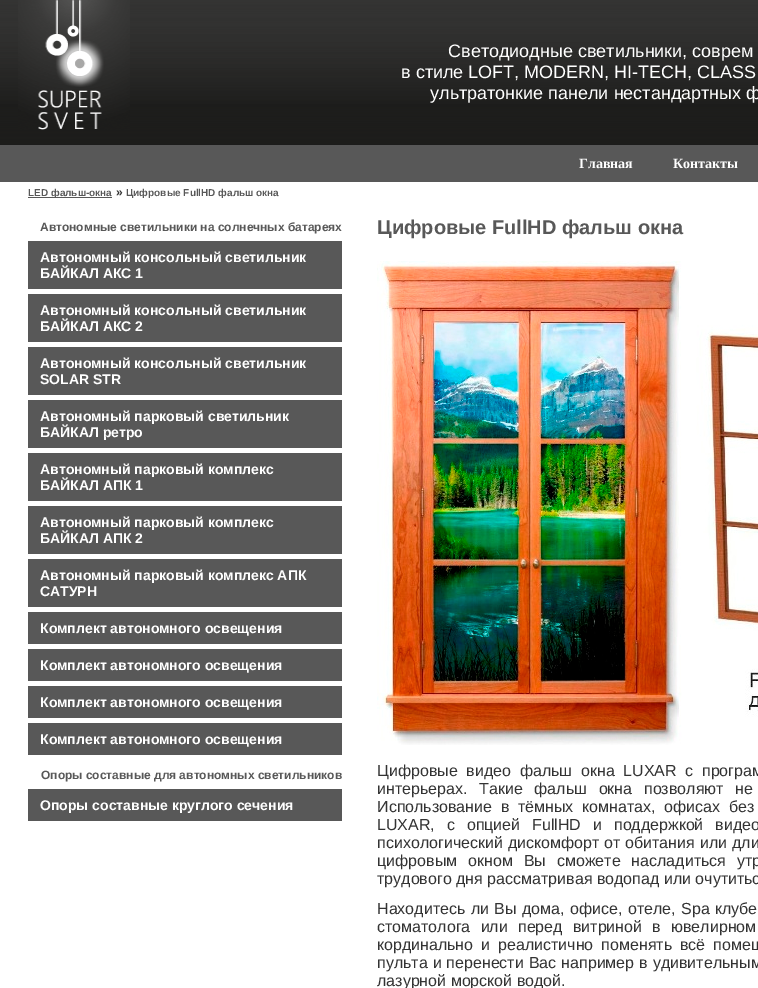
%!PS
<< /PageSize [758 988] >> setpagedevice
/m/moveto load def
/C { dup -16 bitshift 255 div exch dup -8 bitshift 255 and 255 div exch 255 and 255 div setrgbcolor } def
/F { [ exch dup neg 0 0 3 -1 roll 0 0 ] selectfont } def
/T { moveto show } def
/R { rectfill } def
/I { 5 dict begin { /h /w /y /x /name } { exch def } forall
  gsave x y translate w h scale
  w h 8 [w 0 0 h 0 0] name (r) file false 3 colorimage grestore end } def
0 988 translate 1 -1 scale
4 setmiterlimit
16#FFFFFF C
0 0 758 988 R
(1.rgb) 0 0 3 145 I
(2.rgb) 3 0 755 145 I
(3.rgb) 18 0 112 130 I
/LiberationSans-Regular 18 F
(Светодиодные светильники, соврем) 448 57 T
(в стиле LOFT, MODERN, HI-TECH, CLASS) 401 78 T
(ультратонкие панели нестандартных ф) 430 99 T
16#585858 C
0 145 758 37 R
/LiberationSerif-Bold 14 F
16#FFFFFF C
(Главная) 579 168 T
(Контакты) 673 168 T
16#585858 C
28 197 84 1 R
/LiberationSans-Bold 10 F
(LED фальш-окна) 28 196 T
/LiberationSans-Bold 12 F
16#333333 C
(») 116 196 T
/LiberationSans-Bold 10 F
16#585858 C
(Цифровые FullHD фальш окна) 126 196 T
/LiberationSans-Bold 12 F
(Автономные светильники на солнечных батареях) 40 231 T
28 241 314 48 R
/LiberationSans-Bold 14 F
16#FFFFFF C
(Автономный консольный светильник) 40 262 T
(БАЙКАЛ АКС 1) 40 278 T
16#585858 C
28 294 314 48 R
16#FFFFFF C
(Автономный консольный светильник) 40 315 T
(БАЙКАЛ АКС 2) 40 331 T
16#585858 C
28 347 314 48 R
16#FFFFFF C
(Автономный консольный светильник) 40 368 T
(SOLAR STR) 40 384 T
16#585858 C
28 400 314 48 R
16#FFFFFF C
(Автономный парковый светильник) 40 421 T
(БАЙКАЛ ретро) 40 437 T
16#585858 C
28 453 314 48 R
16#FFFFFF C
(Автономный парковый комплекс) 40 474 T
(БАЙКАЛ АПК 1) 40 490 T
16#585858 C
28 506 314 48 R
16#FFFFFF C
(Автономный парковый комплекс) 40 527 T
(БАЙКАЛ АПК 2) 40 543 T
16#585858 C
28 559 314 48 R
16#FFFFFF C
(Автономный парковый комплекс АПК) 40 580 T
(САТУРН) 40 596 T
16#585858 C
28 612 314 32 R
16#FFFFFF C
(Комплект автономного освещения) 40 633 T
16#585858 C
28 649 314 32 R
16#FFFFFF C
(Комплект автономного освещения) 40 670 T
16#585858 C
28 686 314 32 R
16#FFFFFF C
(Комплект автономного освещения) 40 707 T
16#585858 C
28 723 314 32 R
16#FFFFFF C
(Комплект автономного освещения) 40 744 T
/LiberationSans-Bold 12 F
16#585858 C
(Опоры составные для автономных светильников) 41 779 T
28 789 314 32 R
/LiberationSans-Bold 14 F
16#FFFFFF C
(Опоры составные круглого сечения) 40 810 T
/LiberationSans-Bold 20 F
16#585858 C
(Цифровые FullHD фальш окна) 377 234 T
(4.rgb) 377 261 381 484 I
/LiberationSans-Regular 16 F
16#333333 C
377 776 m 4.25 0 32 (Цифровые видео фальш окна LUXAR с програм) widthshow
377 794 m 7.25 0 32 (интерьерах. Такие фальш окна позволяют не) widthshow
377 812 m 4.25 0 32 (Использование в тёмных комнатах, офисах без) widthshow
377 830 m 7.5 0 32 (LUXAR, с опцией FullHD и поддержкой видео) widthshow
377 848 m .5 0 32 (психологический дискомфорт от обитания или дли) widthshow
377 866 m 6.5 0 32 (цифровым окном Вы сможете насладиться утр) widthshow
(трудового дня рассматривая водопад или очутитьс) 377 884 T
377 914 m 1 0 32 (Находитесь ли Вы дома, офисе, отеле, Spa клубе) widthshow
377 932 m 5.75 0 32 (стоматолога или перед витриной в ювелирном) widthshow
377 950 m 3.5 0 32 (кординально и реалистично поменять всё помещ) widthshow
377 968 m .5 0 32 (пульта и перенести Вас например в удивительным) widthshow
(лазурной морской водой.) 377 986 T
showpage
